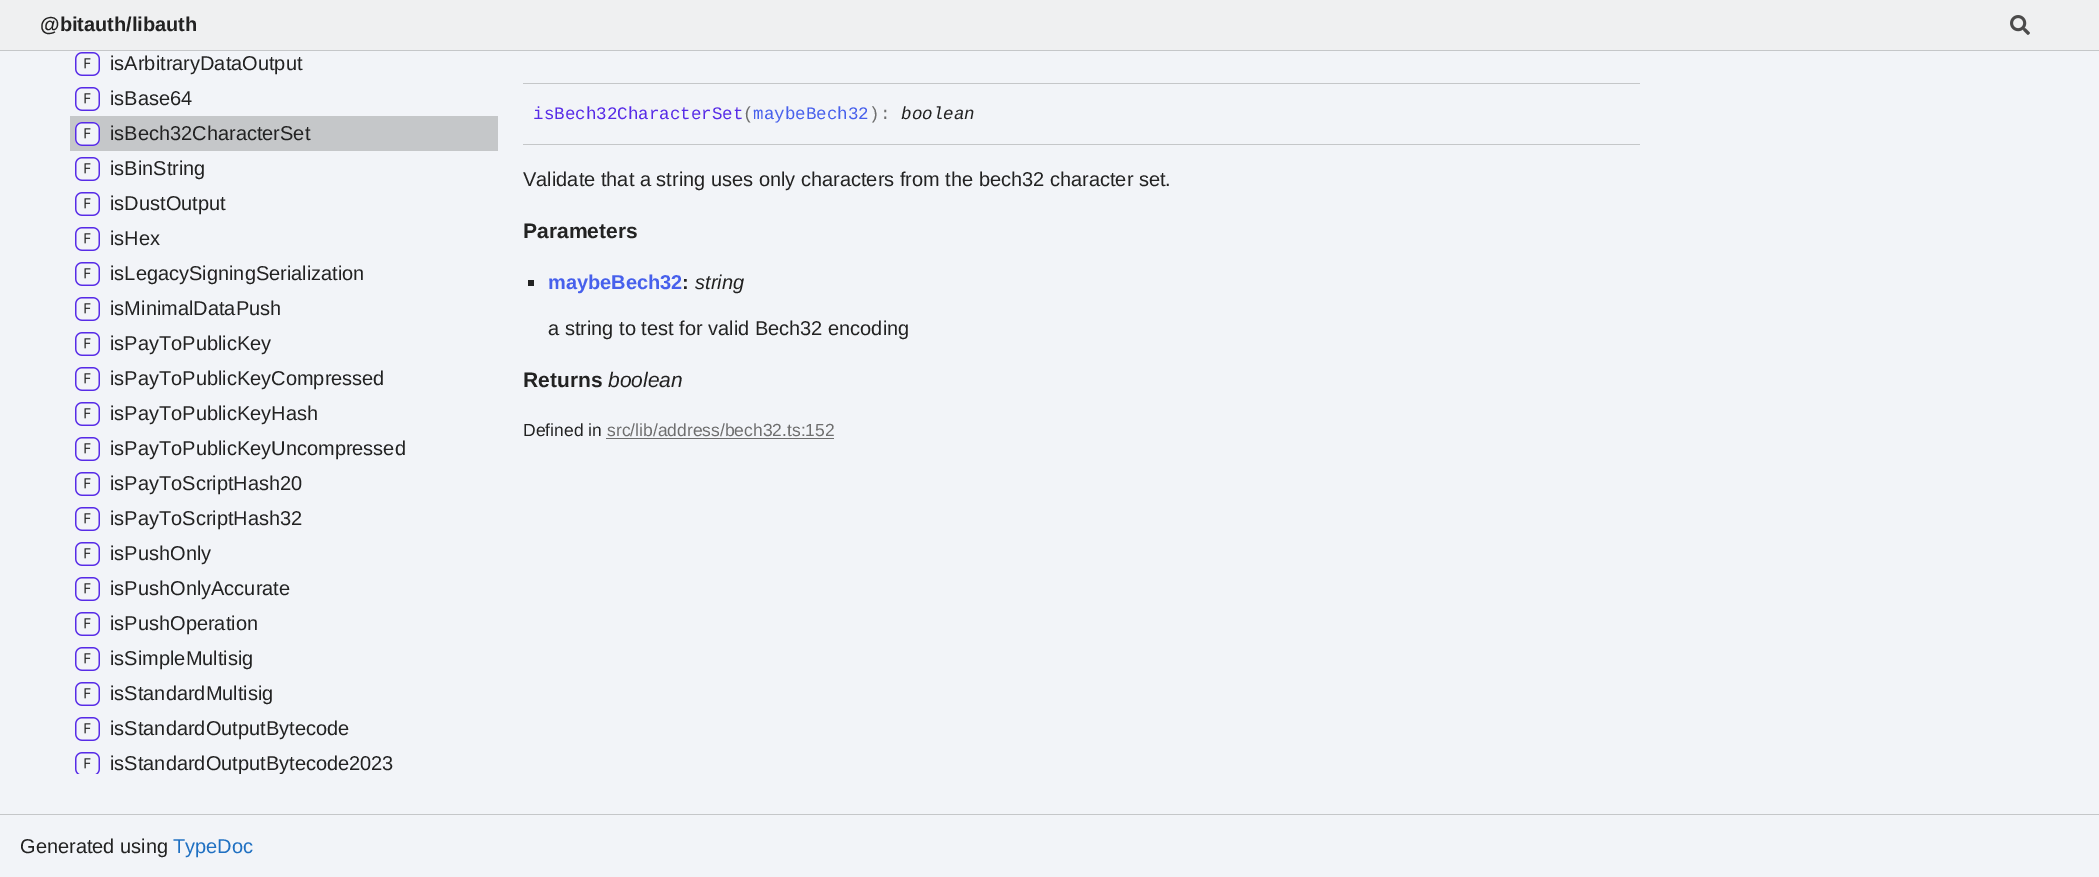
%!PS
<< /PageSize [2099 877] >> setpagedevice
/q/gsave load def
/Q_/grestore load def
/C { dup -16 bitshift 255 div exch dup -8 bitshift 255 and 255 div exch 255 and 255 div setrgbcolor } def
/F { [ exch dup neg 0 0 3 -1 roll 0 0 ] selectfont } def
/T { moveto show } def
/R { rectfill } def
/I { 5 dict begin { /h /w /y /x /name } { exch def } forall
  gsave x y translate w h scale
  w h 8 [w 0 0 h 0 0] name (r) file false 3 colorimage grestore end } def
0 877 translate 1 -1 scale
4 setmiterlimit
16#F2F4F8 C
0 0 2099 877 R
16#EFF0F1 C
0 0 2099 50 R
16#C5C7C9 C
0 50 2099 1 R
/LiberationSans-Bold 20 F
16#222222 C
(@bitauth/libauth) 40 31 T
(1.rgb) 2010 15 20 20 I
(2.rgb) 75 52 25 24 I
/LiberationSans-Regular 20 F
(isArbitraryDataOutput) 110 70 T
(2.rgb) 75 87 25 24 I
(isBase64) 110 105 T
16#C5C7C9 C
70 116 428 35 R
(3.rgb) 75 122 25 24 I
16#222222 C
(isBech32CharacterSet) 110 140 T
(2.rgb) 75 157 25 24 I
(isBinString) 110 175 T
(2.rgb) 75 192 25 24 I
(isDustOutput) 110 210 T
(2.rgb) 75 227 25 24 I
(isHex) 110 245 T
(2.rgb) 75 262 25 24 I
(isLegacySigningSerialization) 110 280 T
(2.rgb) 75 297 25 24 I
(isMinimalDataPush) 110 315 T
(2.rgb) 75 332 25 24 I
(isPayToPublicKey) 110 350 T
(2.rgb) 75 367 25 24 I
(isPayToPublicKeyCompressed) 110 385 T
(2.rgb) 75 402 25 24 I
(isPayToPublicKeyHash) 110 420 T
(2.rgb) 75 437 25 24 I
(isPayToPublicKeyUncompressed) 110 455 T
(2.rgb) 75 472 25 24 I
(isPayToScriptHash20) 110 490 T
(2.rgb) 75 507 25 24 I
(isPayToScriptHash32) 110 525 T
(2.rgb) 75 542 25 24 I
(isPushOnly) 110 560 T
(2.rgb) 75 577 25 24 I
(isPushOnlyAccurate) 110 595 T
(2.rgb) 75 612 25 24 I
(isPushOperation) 110 630 T
(2.rgb) 75 647 25 24 I
(isSimpleMultisig) 110 665 T
(2.rgb) 75 682 25 24 I
(isStandardMultisig) 110 700 T
(2.rgb) 75 717 25 24 I
(isStandardOutputBytecode) 110 735 T
(4.rgb) 75 752 25 22 I
q
40 0 463 774 rectclip
(isStandardOutputBytecode2023) 110 770 T
Q_
16#C5C7C9 C
523 83 1117 1 R
523 144 1117 1 R
/LiberationMono-Regular 17.5 F
16#572BE7 C
(isBech32CharacterSet) 533 119 T
16#6E6E6E C
(\() 743 119 T
16#4760EC C
(maybeBech32) 753 119 T
16#6E6E6E C
(\):) 869 119 T
/LiberationMono-Italic 17.5 F
16#222222 C
(boolean) 901 119 T
/LiberationSans-Regular 20 F
(Validate that a string uses only characters from the bech32 character set.) 523 186 T
/LiberationSans-Bold 21 F
(Parameters) 523 238 T
528 280 6 6 R
/LiberationSans-Bold 20 F
16#4760EC C
(maybeBech32) 548 289 T
16#222222 C
(:) 682 289 T
/LiberationSans-Italic 20 F
(string) 695 289 T
/LiberationSans-Regular 20 F
(a string to test for valid Bech32 encoding) 548 335 T
/LiberationSans-Bold 21 F
(Returns) 523 387 T
/LiberationSans-Italic 21 F
(boolean) 608 387 T
/LiberationSans-Regular 17.5 F
(Defined in) 523 436 T
16#6E6E6E C
(src/lib/address/bech32.ts:152) 607 436 T
606 438 228 1 R
16#C5C7C9 C
0 814 2099 1 R
/LiberationSans-Regular 20 F
16#222222 C
(Generated using) 20 853 T
16#1F70C2 C
(TypeDoc) 173 853 T
showpage
